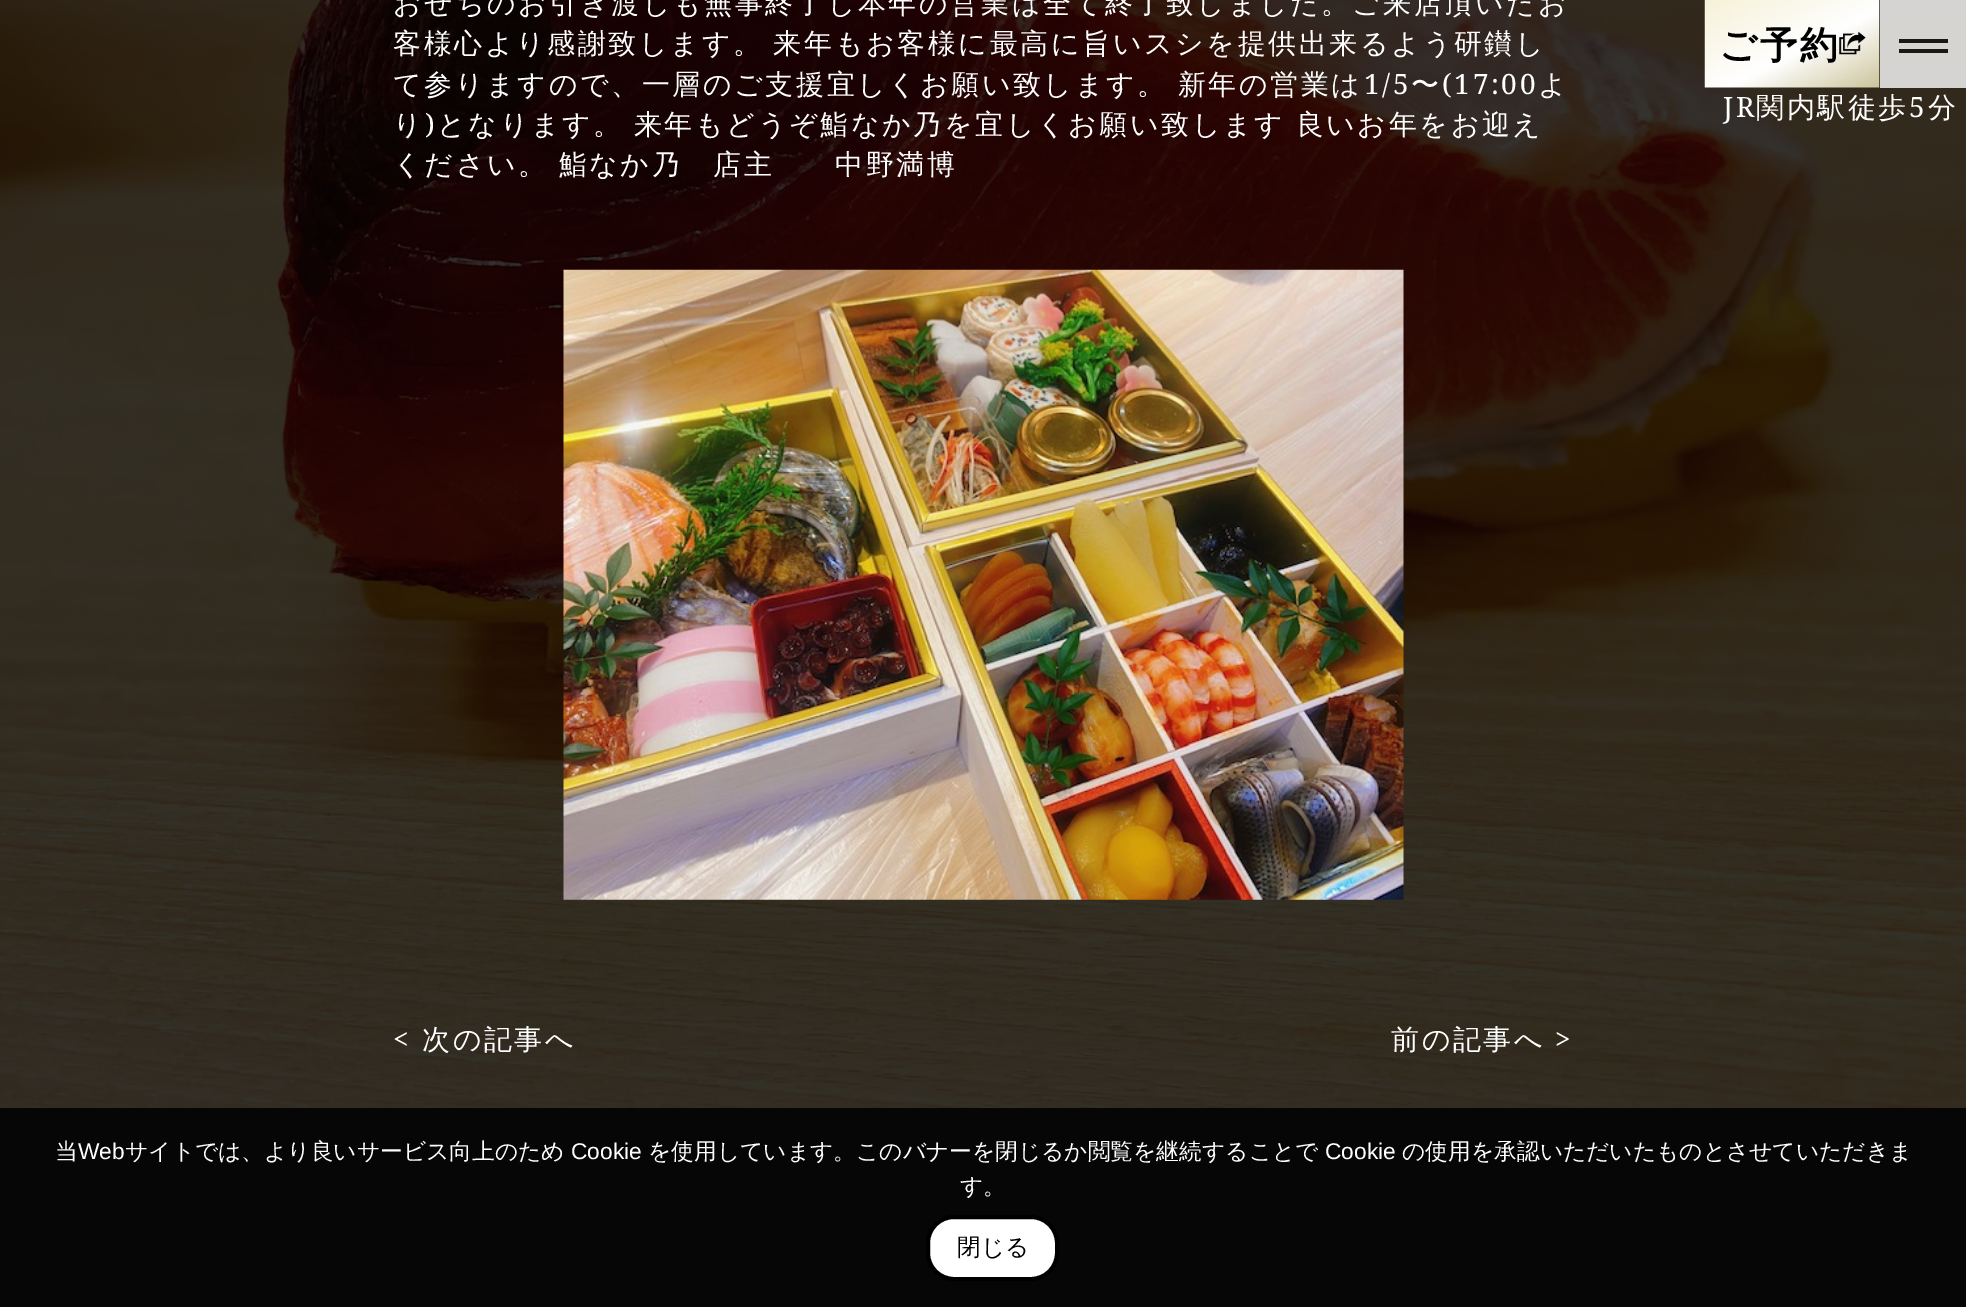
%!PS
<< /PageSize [1966 1307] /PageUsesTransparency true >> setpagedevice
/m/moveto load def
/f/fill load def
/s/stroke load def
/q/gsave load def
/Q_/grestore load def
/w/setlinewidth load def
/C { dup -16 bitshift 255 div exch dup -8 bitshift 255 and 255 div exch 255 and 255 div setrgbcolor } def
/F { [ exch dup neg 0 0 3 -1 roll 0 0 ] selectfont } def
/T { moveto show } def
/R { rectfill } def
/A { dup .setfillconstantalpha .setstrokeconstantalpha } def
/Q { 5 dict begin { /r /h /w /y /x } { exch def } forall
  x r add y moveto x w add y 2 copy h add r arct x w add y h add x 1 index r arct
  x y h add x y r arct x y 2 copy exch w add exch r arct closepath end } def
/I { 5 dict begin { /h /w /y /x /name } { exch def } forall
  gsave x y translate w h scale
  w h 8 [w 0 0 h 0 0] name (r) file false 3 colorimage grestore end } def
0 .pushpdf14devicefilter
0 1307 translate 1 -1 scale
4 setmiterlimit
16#FFFFFF C
0 0 1966 1307 R
(1.rgb) 0 0 1966 1108 I
/WenQuanYiZenHei-Medium 28 F
393 13 m 2.6 0 (おせちのお引き渡しも無事終了し本年の営業は全て終了致しました。ご来店頂いたお) ashow
393 53 m -1 0 32 2.6 0 (客様心より感謝致します。 来年もお客様に最高に旨いスシを提供出来るよう研鑚し) awidthshow
393 94 m -1 0 32 2.6 0 (て参りますので、一層のご支援宜しくお願い致します。 新年の営業は) awidthshow
/NotoSerif-Regular 28 F
1364 94 m 2.6 0 (1/5) ashow
/WenQuanYiZenHei-Medium 28 F
1411 94 m 2.6 0 (〜) ashow
/NotoSerif-Regular 28 F
1442 94 m 2.6 0 (\(17:00) ashow
/WenQuanYiZenHei-Medium 28 F
1538 94 m 2.6 0 (よ) ashow
393 134 m 2.6 0 (り) ashow
/NotoSerif-Regular 28 F
425 134 m 2.6 0 (\)) ashow
/WenQuanYiZenHei-Medium 28 F
437 134 m -1 0 32 2.6 0 (となります。 来年もどうぞ鮨なか乃を宜しくお願い致します 良いお年をお迎え) awidthshow
393 174 m -1 0 32 2.6 0 (ください。 鮨なか乃　店主　　中野満博) awidthshow
(2.rgb) 563 269 841 631 I
/NotoSerif-Regular 28 F
393 1049 m 2.6 0 (<) ashow
/WenQuanYiZenHei-Medium 28 F
422 1049 m 2.6 0 (次の記事へ) ashow
1391 1049 m 2.6 0 (前の記事へ) ashow
/NotoSerif-Regular 28 F
1555 1049 m 2.6 0 (>) ashow
(3.rgb) 1704 0 176 88 I
/WenQuanYiZenHei-Bold 37.5 F
16#000000 C
1719 58 m 2.6 0 (ご予約) ashow
(4.rgb) 1839 31 27 24 I
0.8 A
16#FFFFFF C
1880 0 86 88 R
1 A
16#1A1815 C
1899 39 49 4 R
1899 49 49 4 R
/NotoSerif-Regular 28 F
16#FFFFFF C
1723 117 m 2.6 0 (JR) ashow
/WenQuanYiZenHei-Medium 28 F
1756 117 m 2.6 0 (関内駅徒歩) ashow
/NotoSerif-Regular 28 F
1909 117 m 2.6 0 (5) ashow
/WenQuanYiZenHei-Medium 28 F
1928 117 m 2.6 0 (分) ashow
16#060606 C
0 1108 1966 199 R
/WenQuanYiZenHei-Medium 22.75 F
16#FFFFFF C
(当) 55 1159 T
/LiberationSans-Regular 22.75 F
(Web) 78 1159 T
/WenQuanYiZenHei-Medium 22.75 F
(サイトでは、より良いサービス向上のため) 125 1159 T
/LiberationSans-Regular 22.75 F
(Cookie) 571 1159 T
/WenQuanYiZenHei-Medium 22.75 F
(を使用しています。このバナーを閉じるか閲覧を継続することで) 648 1159 T
/LiberationSans-Regular 22.75 F
(Cookie) 1325 1159 T
/WenQuanYiZenHei-Medium 22.75 F
(の使用を承認いただいたものとさせていただきま) 1402 1159 T
(す。) 960 1194 T
928 1217 129 62 26 Q q f Q_
16#000000 C
4 w
s
/WenQuanYiZenHei-Medium 23.5 F
(閉じる) 957 1255 T
.poppdf14devicefilter showpage
